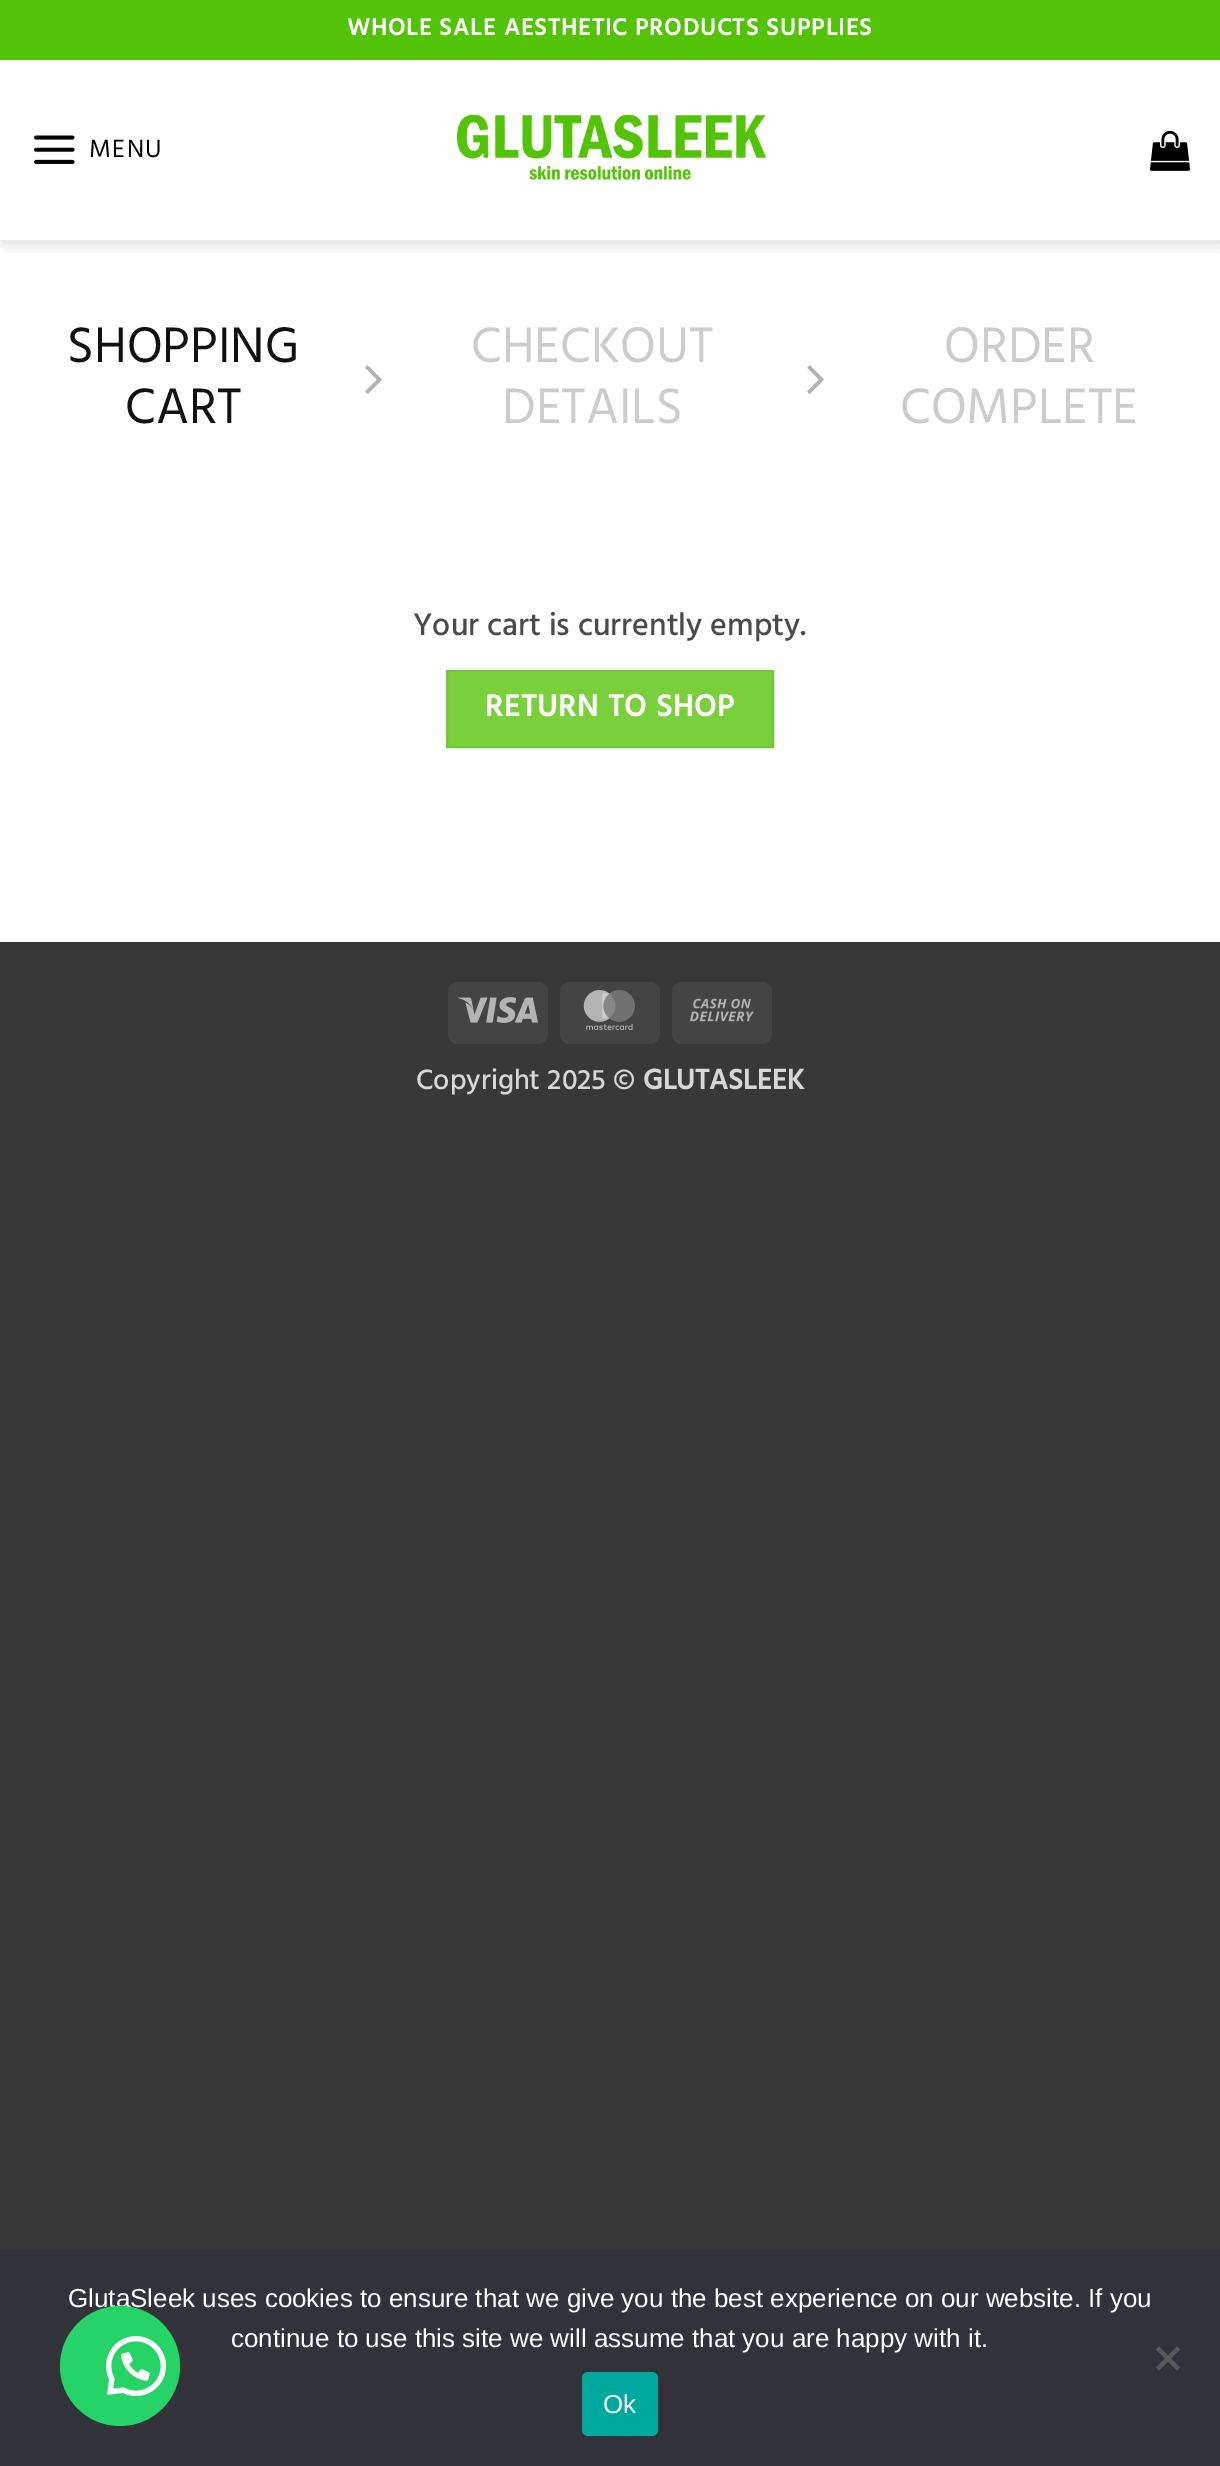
%!PS
<< /PageSize [1220 2466] /PageUsesTransparency true >> setpagedevice
/m/moveto load def
/l/rlineto load def
/z/closepath load def
/f/fill load def
/s/stroke load def
/q/gsave load def
/Q_/grestore load def
/w/setlinewidth load def
/C { dup -16 bitshift 255 div exch dup -8 bitshift 255 and 255 div exch 255 and 255 div setrgbcolor } def
/F { [ exch dup neg 0 0 3 -1 roll 0 0 ] selectfont } def
/T { moveto show } def
/R { rectfill } def
/A { dup .setfillconstantalpha .setstrokeconstantalpha } def
/O { newpath 0 360 arc closepath } def
/Q { 5 dict begin { /r /h /w /y /x } { exch def } forall
  x r add y moveto x w add y 2 copy h add r arct x w add y h add x 1 index r arct
  x y h add x y r arct x y 2 copy exch w add exch r arct closepath end } def
/S { 12 dict begin { /a /b /q /h /w /y /x } { exch def } forall gsave /was 0 def
  9 -2 -9 { dup b mul 4 div /e exch def 1 sub .425 mul 2.718 exch exp 1 add a .99 .min exch div /now exch def
    1 1 now sub 1 was sub div sub A /was now def
    w h .min e 2 mul add 0 gt { x e sub y e sub w e 2 mul add h e 2 mul add
      q e add b .6 mul add w h .min 2 div e add .min 0 .max Q fill } if } for grestore end } def
/I { 5 dict begin { /h /w /y /x /name } { exch def } forall
  gsave x y translate w h scale
  w h 8 [w 0 0 h 0 0] name (r) file false 3 colorimage grestore end } def
0 .pushpdf14devicefilter
0 2466 translate 1 -1 scale
4 setmiterlimit
16#383838 C
0 0 1220 2466 R
16#FFFFFF C
0 60 1220 882 R
q
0 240 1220 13 rectclip
16#000000 C
2 2 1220 240 0 10 .15 S
Q_
16#52C307 C
0 0 1220 60 R
/Hind-Bold 24 F
16#FFFFFF C
347 35 m 1.2 0 (WHOLE SALE AESTHETIC PRODUCTS SUPPLIES) ashow
(1.rgb) 34 135 41 29 I
/Hind-Regular 25.5 F
16#000000 C
89 157 m 1.5 0 (MENU) ashow
(2.rgb) 456 114 311 66 I
(3.rgb) 1150 130 40 41 I
/Hind-Regular 51 F
16#111111 C
(SHOPPING) 67 362 T
(CART) 125 423 T
(4.rgb) 365 365 17 29 I
16#CCCCCC C
(CHECKOUT) 471 362 T
(DETAILS) 502 423 T
(4.rgb) 807 365 17 29 I
(ORDER) 944 362 T
(COMPLETE) 900 423 T
/Hind-Medium 32 F
16#4A4A4A C
(Your cart is currently empty.) 413 635 T
16#7AD03A C
447 671 m 326 0 l 0 76 l -326 0 l z q f Q_
16#74C637 C
2 w
s
/Hind-Bold 31 F
16#FFFFFF C
485 716 m 1 0 (RETURN TO SHOP) ashow
16#444444 C
448 982 100 62 10 Q f
(5.rgb) 458 997 80 26 I
560 982 100 62 10 Q f
(6.rgb) 583 990 52 40 I
672 982 100 62 10 Q f
(7.rgb) 690 998 64 24 I
/Hind-Medium 28.75 F
16#D7D7D7 C
(Copyright 2025 ©) 416 1089 T
/Hind-Bold 28.75 F
(GLUTASLEEK) 643 1089 T
16#32323A C
0 2250 1220 216 R
/LiberationSans-Regular 26 F
16#FFFFFF C
(GlutaSleek uses cookies to ensure that we give you the best experience on our website. If you) 68 2307 T
(continue to use this site we will assume that you are happy with it.) 231 2347 T
16#59595D C
1177 2346.5 m 3 3 l -21 21 l -3 -3 l z f
1156 2349.5 m 3 -3 l 21 21 l -3 3 l z f
16#00A99D C
582 2372 76 64 6 Q f
16#FFFFFF C
(Ok) 603 2413 T
16#25D366 C
120 2366 60 O f
(8.rgb) 106 2336 60 60 I
.poppdf14devicefilter showpage
